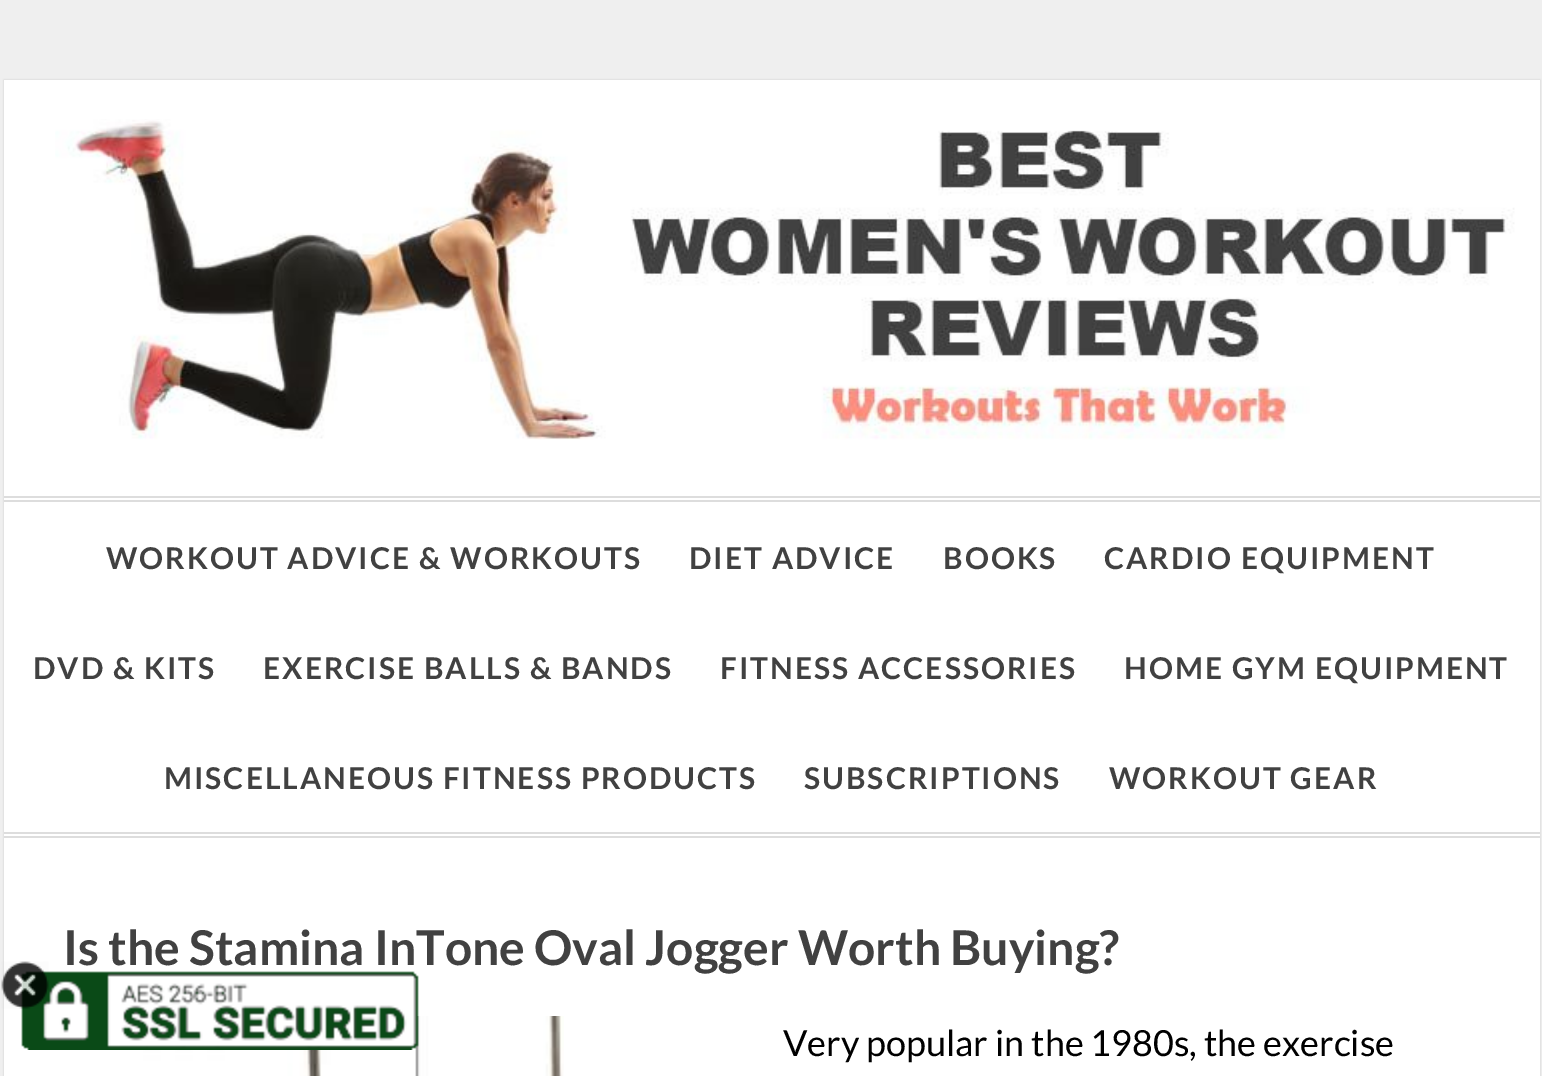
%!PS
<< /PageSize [1542 1076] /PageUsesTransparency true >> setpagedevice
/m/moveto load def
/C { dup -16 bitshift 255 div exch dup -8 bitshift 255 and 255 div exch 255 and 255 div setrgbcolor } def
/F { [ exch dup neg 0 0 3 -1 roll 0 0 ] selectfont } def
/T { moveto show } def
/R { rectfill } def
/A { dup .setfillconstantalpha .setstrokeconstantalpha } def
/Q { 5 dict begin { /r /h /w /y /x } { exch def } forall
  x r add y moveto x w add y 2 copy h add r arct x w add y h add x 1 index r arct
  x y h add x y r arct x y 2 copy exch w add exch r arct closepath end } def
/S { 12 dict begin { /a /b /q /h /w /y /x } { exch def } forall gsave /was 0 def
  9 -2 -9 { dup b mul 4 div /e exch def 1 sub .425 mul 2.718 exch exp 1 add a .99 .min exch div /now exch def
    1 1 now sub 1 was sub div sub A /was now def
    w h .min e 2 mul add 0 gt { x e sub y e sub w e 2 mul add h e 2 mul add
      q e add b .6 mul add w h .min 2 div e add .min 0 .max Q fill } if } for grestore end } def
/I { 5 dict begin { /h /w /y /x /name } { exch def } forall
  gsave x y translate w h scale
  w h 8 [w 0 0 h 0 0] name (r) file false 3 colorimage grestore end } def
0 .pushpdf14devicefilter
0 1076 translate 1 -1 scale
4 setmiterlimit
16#EFEFEF C
0 0 1542 1076 R
16#000000 C
4 80 1536 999 0 1 .15 S
16#FFFFFF C
4 80 1536 996 R
(1.rgb) 55 119 1460 321 I
16#DDDDDD C
4 496 1536 2 R
4 500 1536 2 R
4 832 1536 2 R
4 836 1536 2 R
/Lato-Bold 30 F
16#414141 C
106 569 m 2 0 (WORKOUT ADVICE & WORKOUTS) ashow
689 569 m 2 0 (DIET ADVICE) ashow
943 569 m 2 0 (BOOKS) ashow
1104 569 m 2 0 (CARDIO EQUIPMENT) ashow
33 679 m 2 0 (DVD & KITS) ashow
263 679 m 2 0 (EXERCISE BALLS & BANDS) ashow
720 679 m 2 0 (FITNESS ACCESSORIES) ashow
1124 679 m 2 0 (HOME GYM EQUIPMENT) ashow
164 789 m 2 0 (MISCELLANEOUS FITNESS PRODUCTS) ashow
804 789 m 2 0 (SUBSCRIPTIONS) ashow
1109 789 m 2 0 (WORKOUT GEAR) ashow
/Lato-Bold 48 F
(Is the Stamina InTone Oval Jogger Worth Buying?) 63 965 T
(2.rgb) 112 1016 452 60 I
/Lato-Regular 36 F
16#000000 C
(Very popular in the 1980s, the exercise) 783 1056 T
(4.rgb) 21 971 398 79 I
(3.rgb) 1 961 48 48 I
.poppdf14devicefilter showpage
